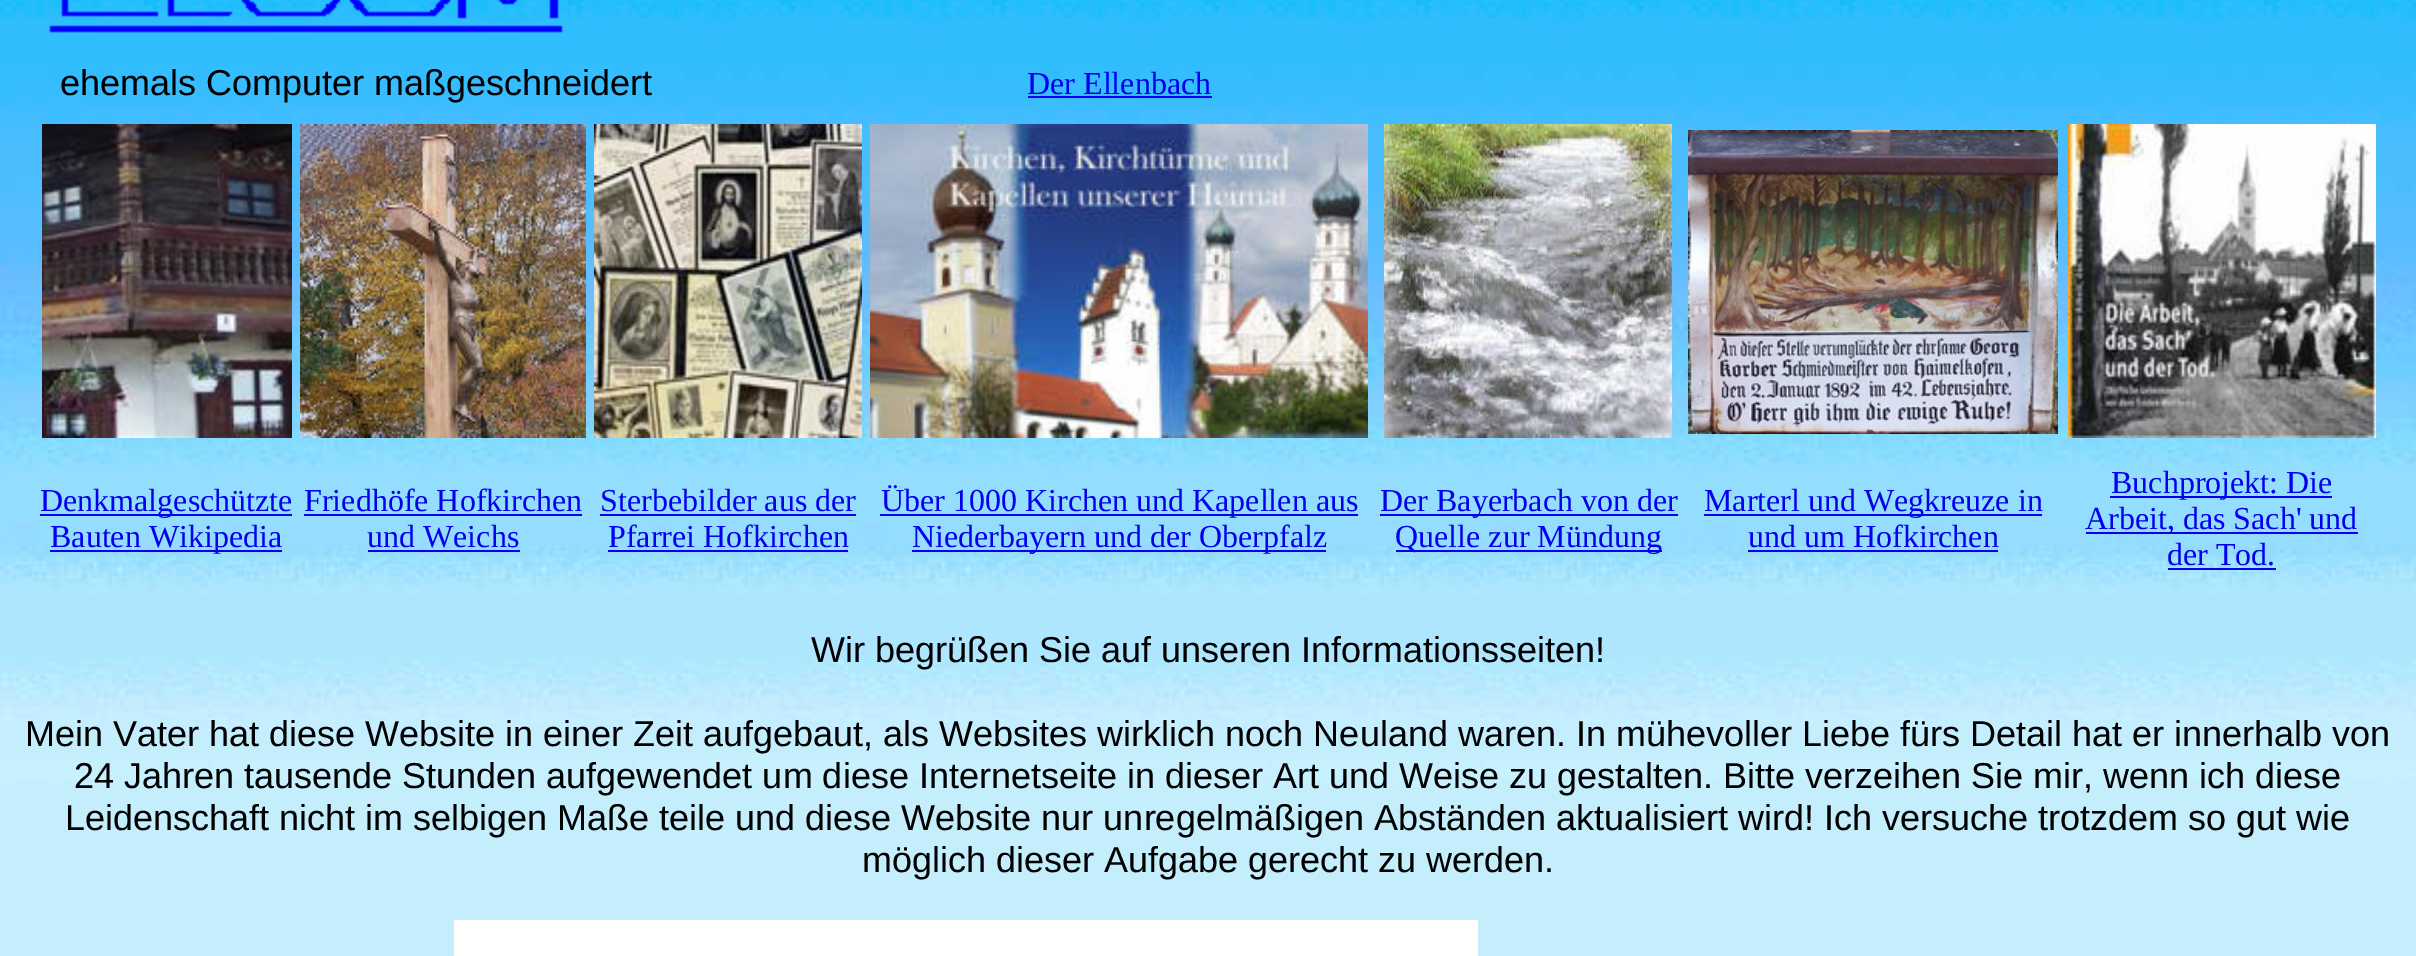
%!PS
<< /PageSize [2416 956] >> setpagedevice
/C { dup -16 bitshift 255 div exch dup -8 bitshift 255 and 255 div exch 255 and 255 div setrgbcolor } def
/F { [ exch dup neg 0 0 3 -1 roll 0 0 ] selectfont } def
/T { moveto show } def
/R { rectfill } def
/I { 5 dict begin { /h /w /y /x /name } { exch def } forall
  gsave x y translate w h scale
  w h 8 [w 0 0 h 0 0] name (r) file false 3 colorimage grestore end } def
0 956 translate 1 -1 scale
4 setmiterlimit
16#FFFFFF C
0 0 2416 956 R
(1.rgb) 0 0 2416 956 I
(2.rgb) 49 0 514 33 I
/LiberationSans-Regular 36 F
16#000000 C
(ehemals Computer maßgeschneidert) 60 95 T
/LiberationSerif-Regular 32 F
16#0000EE C
(Der Ellenbach) 1027 94 T
1028 96 184 2 R
(3.rgb) 42 124 250 314 I
(4.rgb) 300 124 286 314 I
(5.rgb) 594 124 268 314 I
(6.rgb) 870 124 498 314 I
(7.rgb) 1384 124 288 314 I
(8.rgb) 1688 130 370 304 I
(9.rgb) 2068 124 308 314 I
40 514 252 2 R
(Denkmalgeschützte) 40 511 T
50 550 232 2 R
(Bauten Wikipedia) 50 547 T
(Friedhöfe Hofkirchen) 304 511 T
304 514 278 2 R
(und Weichs) 367 547 T
368 550 152 2 R
(Sterbebilder aus der) 600 511 T
600 514 256 2 R
(Pfarrei Hofkirchen) 608 547 T
608 550 240 2 R
880 514 478 2 R
(Über 1000 Kirchen und Kapellen aus) 881 511 T
912 550 414 2 R
(Niederbayern und der Oberpfalz) 912 547 T
1380 514 298 2 R
(Der Bayerbach von der) 1380 511 T
1396 550 266 2 R
(Quelle zur Mündung) 1395 547 T
1704 514 338 2 R
(Marterl und Wegkreuze in) 1704 511 T
(und um Hofkirchen) 1748 547 T
1748 550 250 2 R
2110 496 222 2 R
(Buchprojekt: Die) 2111 493 T
2086 532 272 2 R
(Arbeit, das Sach' und) 2085 529 T
(der Tod.) 2167 565 T
2168 568 108 2 R
/LiberationSans-Regular 36 F
16#000000 C
(Wir begrüßen Sie auf unseren Informationsseiten!) 811 662 T
(Mein Vater hat diese Website in einer Zeit aufgebaut, als Websites wirklich noch Neuland waren. In mühevoller Liebe fürs Detail hat er innerhalb von) 25 746 T
(24 Jahren tausende Stunden aufgewendet um diese Internetseite in dieser Art und Weise zu gestalten. Bitte verzeihen Sie mir, wenn ich diese) 74 788 T
(Leidenschaft nicht im selbigen Maße teile und diese Website nur unregelmäßigen Abständen aktualisiert wird! Ich versuche trotzdem so gut wie) 65 830 T
(möglich dieser Aufgabe gerecht zu werden.) 862 872 T
16#FFFFFF C
454 920 1024 36 R
showpage
